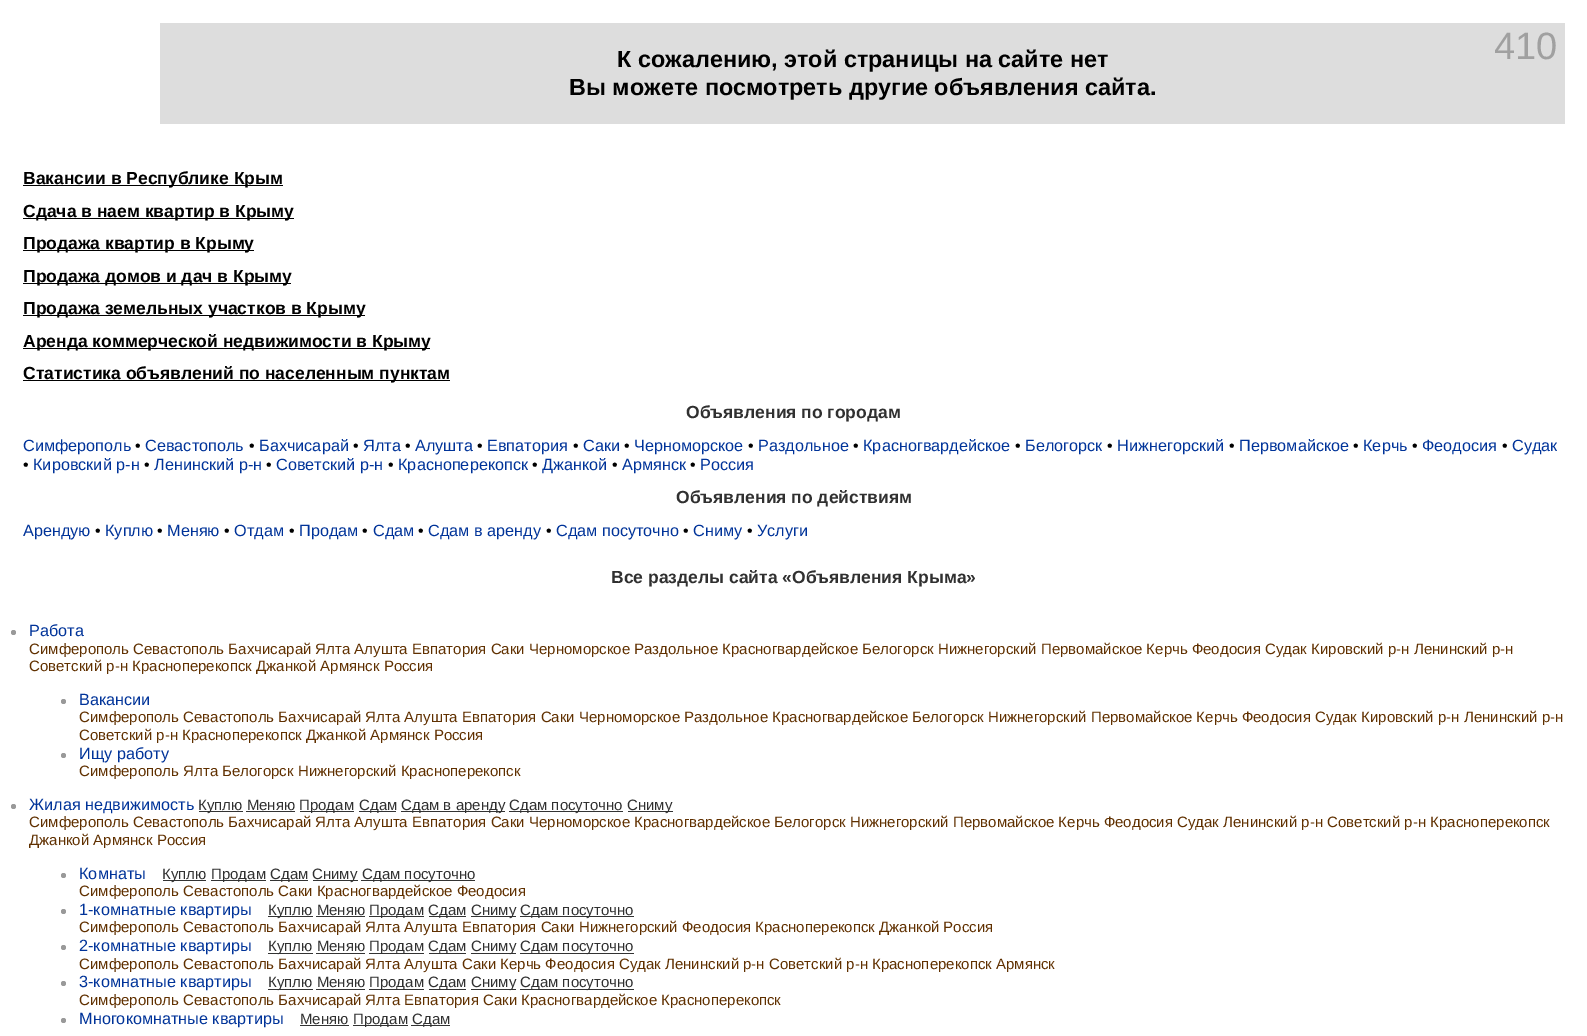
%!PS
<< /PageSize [1587 1036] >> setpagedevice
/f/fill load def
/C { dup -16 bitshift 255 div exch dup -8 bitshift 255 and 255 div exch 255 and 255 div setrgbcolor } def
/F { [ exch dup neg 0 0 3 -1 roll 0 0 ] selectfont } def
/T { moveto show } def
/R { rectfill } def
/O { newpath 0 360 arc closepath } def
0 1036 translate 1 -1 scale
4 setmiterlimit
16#FFFFFF C
0 0 1587 1036 R
16#DDDDDD C
160 23 1405 101 R
/LiberationSans-Regular 38 F
16#A0A0A0 C
(410) 1494 59 T
/LiberationSans-Bold 23.4 F
16#000000 C
(К сожалению, этой страницы на сайте нет) 617 67 T
(Вы можете посмотреть другие объявления сайта.) 569 95 T
23 185 260 1 R
/LiberationSans-Bold 17.5 F
(Вакансии в Республике Крым) 23 184 T
23 218 271 1 R
(Сдача в наем квартир в Крыму) 23 217 T
23 250 231 1 R
(Продажа квартир в Крыму) 23 249 T
23 283 268 1 R
(Продажа домов и дач в Крыму) 23 282 T
23 315 342 1 R
(Продажа земельных участков в Крыму) 23 314 T
23 348 407 1 R
(Аренда коммерческой недвижимости в Крыму) 23 347 T
23 380 427 1 R
(Статистика объявлений по населенным пунктам) 23 379 T
16#303030 C
(Объявления по городам) 686 418 T
/LiberationSans-Regular 16.25 F
16#003399 C
(Симферополь) 23 451 T
/LiberationSans-Regular 16 F
16#000000 C
(•) 135 451 T
/LiberationSans-Regular 16.25 F
16#003399 C
(Севастополь) 145 451 T
/LiberationSans-Regular 16 F
16#000000 C
(•) 249 451 T
/LiberationSans-Regular 16.25 F
16#003399 C
(Бахчисарай) 259 451 T
/LiberationSans-Regular 16 F
16#000000 C
(•) 353 451 T
/LiberationSans-Regular 16.25 F
16#003399 C
(Ялта) 363 451 T
/LiberationSans-Regular 16 F
16#000000 C
(•) 405 451 T
/LiberationSans-Regular 16.25 F
16#003399 C
(Алушта) 415 451 T
/LiberationSans-Regular 16 F
16#000000 C
(•) 477 451 T
/LiberationSans-Regular 16.25 F
16#003399 C
(Евпатория) 487 451 T
/LiberationSans-Regular 16 F
16#000000 C
(•) 573 451 T
/LiberationSans-Regular 16.25 F
16#003399 C
(Саки) 583 451 T
/LiberationSans-Regular 16 F
16#000000 C
(•) 624 451 T
/LiberationSans-Regular 16.25 F
16#003399 C
(Черноморское) 634 451 T
/LiberationSans-Regular 16 F
16#000000 C
(•) 748 451 T
/LiberationSans-Regular 16.25 F
16#003399 C
(Раздольное) 758 451 T
/LiberationSans-Regular 16 F
16#000000 C
(•) 853 451 T
/LiberationSans-Regular 16.25 F
16#003399 C
(Красногвардейское) 863 451 T
/LiberationSans-Regular 16 F
16#000000 C
(•) 1015 451 T
/LiberationSans-Regular 16.25 F
16#003399 C
(Белогорск) 1025 451 T
/LiberationSans-Regular 16 F
16#000000 C
(•) 1107 451 T
/LiberationSans-Regular 16.25 F
16#003399 C
(Нижнегорский) 1117 451 T
/LiberationSans-Regular 16 F
16#000000 C
(•) 1229 451 T
/LiberationSans-Regular 16.25 F
16#003399 C
(Первомайское) 1239 451 T
/LiberationSans-Regular 16 F
16#000000 C
(•) 1353 451 T
/LiberationSans-Regular 16.25 F
16#003399 C
(Керчь) 1363 451 T
/LiberationSans-Regular 16 F
16#000000 C
(•) 1412 451 T
/LiberationSans-Regular 16.25 F
16#003399 C
(Феодосия) 1422 451 T
/LiberationSans-Regular 16 F
16#000000 C
(•) 1502 451 T
/LiberationSans-Regular 16.25 F
16#003399 C
(Судак) 1512 451 T
/LiberationSans-Regular 16 F
16#000000 C
(•) 23 470 T
/LiberationSans-Regular 16.25 F
16#003399 C
(Кировский р-н) 33 470 T
/LiberationSans-Regular 16 F
16#000000 C
(•) 144 470 T
/LiberationSans-Regular 16.25 F
16#003399 C
(Ленинский р-н) 154 470 T
/LiberationSans-Regular 16 F
16#000000 C
(•) 266 470 T
/LiberationSans-Regular 16.25 F
16#003399 C
(Советский р-н) 276 470 T
/LiberationSans-Regular 16 F
16#000000 C
(•) 388 470 T
/LiberationSans-Regular 16.25 F
16#003399 C
(Красноперекопск) 398 470 T
/LiberationSans-Regular 16 F
16#000000 C
(•) 532 470 T
/LiberationSans-Regular 16.25 F
16#003399 C
(Джанкой) 542 470 T
/LiberationSans-Regular 16 F
16#000000 C
(•) 612 470 T
/LiberationSans-Regular 16.25 F
16#003399 C
(Армянск) 622 470 T
/LiberationSans-Regular 16 F
16#000000 C
(•) 690 470 T
/LiberationSans-Regular 16.25 F
16#003399 C
(Россия) 700 470 T
/LiberationSans-Bold 17.5 F
16#303030 C
(Объявления по действиям) 676 503 T
/LiberationSans-Regular 16.25 F
16#003399 C
(Арендую) 23 536 T
/LiberationSans-Regular 16 F
16#000000 C
(•) 95 536 T
/LiberationSans-Regular 16.25 F
16#003399 C
(Куплю) 105 536 T
/LiberationSans-Regular 16 F
16#000000 C
(•) 157 536 T
/LiberationSans-Regular 16.25 F
16#003399 C
(Меняю) 167 536 T
/LiberationSans-Regular 16 F
16#000000 C
(•) 224 536 T
/LiberationSans-Regular 16.25 F
16#003399 C
(Отдам) 234 536 T
/LiberationSans-Regular 16 F
16#000000 C
(•) 289 536 T
/LiberationSans-Regular 16.25 F
16#003399 C
(Продам) 299 536 T
/LiberationSans-Regular 16 F
16#000000 C
(•) 362 536 T
/LiberationSans-Regular 16.25 F
16#003399 C
(Сдам) 373 536 T
/LiberationSans-Regular 16 F
16#000000 C
(•) 418 536 T
/LiberationSans-Regular 16.25 F
16#003399 C
(Сдам в аренду) 428 536 T
/LiberationSans-Regular 16 F
16#000000 C
(•) 546 536 T
/LiberationSans-Regular 16.25 F
16#003399 C
(Сдам посуточно) 556 536 T
/LiberationSans-Regular 16 F
16#000000 C
(•) 683 536 T
/LiberationSans-Regular 16.25 F
16#003399 C
(Сниму) 693 536 T
/LiberationSans-Regular 16 F
16#000000 C
(•) 747 536 T
/LiberationSans-Regular 16.25 F
16#003399 C
(Услуги) 757 536 T
/LiberationSans-Bold 17.5 F
16#303030 C
(Все разделы сайта «Объявления Крыма») 611 583 T
16#999999 C
13.5 632.5 2.5 O f
/LiberationSans-Regular 16.25 F
16#003399 C
(Работа) 29 636 T
/LiberationSans-Regular 15 F
16#603000 C
(Симферополь Севастополь Бахчисарай Ялта Алушта Евпатория Саки Черноморское Раздольное Красногвардейское Белогорск Нижнегорский Первомайское Керчь Феодосия Судак Кировский р-н Ленинский р-н) 29 654 T
(Советский р-н Красноперекопск Джанкой Армянск Россия) 29 671 T
16#999999 C
63.5 701.5 2.5 O f
/LiberationSans-Regular 16.25 F
16#003399 C
(Вакансии) 79 705 T
/LiberationSans-Regular 15 F
16#603000 C
(Симферополь Севастополь Бахчисарай Ялта Алушта Евпатория Саки Черноморское Раздольное Красногвардейское Белогорск Нижнегорский Первомайское Керчь Феодосия Судак Кировский р-н Ленинский р-н) 79 722 T
(Советский р-н Красноперекопск Джанкой Армянск Россия) 79 740 T
16#999999 C
63.5 755.5 2.5 O f
/LiberationSans-Regular 16.25 F
16#003399 C
(Ищу работу) 79 759 T
/LiberationSans-Regular 15 F
16#603000 C
(Симферополь Ялта Белогорск Нижнегорский Красноперекопск) 79 776 T
16#999999 C
13.5 806.5 2.5 O f
/LiberationSans-Regular 16.25 F
16#003399 C
(Жилая недвижимость) 29 810 T
16#333333 C
199 811 44 1 R
/LiberationSans-Regular 15 F
16#303030 C
(Куплю Меняю) 198 810 T
16#333333 C
300 811 54 1 R
16#303030 C
(Продам) 299 810 T
16#333333 C
359 811 37 1 R
16#303030 C
(Сдам) 359 810 T
16#333333 C
401 811 104 1 R
16#303030 C
(Сдам в аренду) 401 810 T
16#333333 C
509 811 114 1 R
16#303030 C
(Сдам посуточно) 509 810 T
16#333333 C
628 811 45 1 R
16#303030 C
(Сниму) 627 810 T
16#333333 C
246 811 49 1 R
16#603000 C
(Симферополь Севастополь Бахчисарай Ялта Алушта Евпатория Саки Черноморское Красногвардейское Белогорск Нижнегорский Первомайское Керчь Феодосия Судак Ленинский р-н Советский р-н Красноперекопск) 29 827 T
(Джанкой Армянск Россия) 29 845 T
16#999999 C
63.5 875.5 2.5 O f
/LiberationSans-Regular 16.25 F
16#003399 C
(Комнаты) 79 879 T
16#333333 C
163 880 43 1 R
/LiberationSans-Regular 15 F
16#303030 C
(Куплю) 162 879 T
16#333333 C
211 880 55 1 R
16#303030 C
(Продам) 211 879 T
16#333333 C
270 880 38 1 R
16#303030 C
(Сдам) 270 879 T
16#333333 C
313 880 45 1 R
16#303030 C
(Сниму) 312 879 T
16#333333 C
361 880 114 1 R
16#303030 C
(Сдам посуточно) 362 879 T
16#603000 C
(Симферополь Севастополь Саки Красногвардейское Феодосия) 79 896 T
16#999999 C
63.5 911.5 2.5 O f
/LiberationSans-Regular 16.25 F
16#003399 C
(1-комнатные квартиры) 79 915 T
16#333333 C
268 916 45 1 R
/LiberationSans-Regular 15 F
16#303030 C
(Куплю Меняю) 268 915 T
16#333333 C
369 916 55 1 R
16#303030 C
(Продам) 369 915 T
16#333333 C
429 916 37 1 R
16#303030 C
(Сдам) 428 915 T
16#333333 C
471 916 45 1 R
16#303030 C
(Сниму) 471 915 T
16#333333 C
520 916 114 1 R
16#303030 C
(Сдам посуточно) 520 915 T
16#333333 C
316 916 49 1 R
16#603000 C
(Симферополь Севастополь Бахчисарай Ялта Алушта Евпатория Саки Нижнегорский Феодосия Красноперекопск Джанкой Россия) 79 932 T
16#999999 C
63.5 947.5 2.5 O f
/LiberationSans-Regular 16.25 F
16#003399 C
(2-комнатные квартиры) 79 951 T
16#333333 C
268 953 45 1 R
/LiberationSans-Regular 15 F
16#303030 C
(Куплю Меняю) 268 951 T
16#333333 C
369 953 55 1 R
16#303030 C
(Продам) 369 951 T
16#333333 C
429 953 37 1 R
16#303030 C
(Сдам) 428 951 T
16#333333 C
471 953 45 1 R
16#303030 C
(Сниму) 471 951 T
16#333333 C
520 953 114 1 R
16#303030 C
(Сдам посуточно) 520 951 T
16#333333 C
316 953 49 1 R
16#603000 C
(Симферополь Севастополь Бахчисарай Ялта Алушта Саки Керчь Феодосия Судак Ленинский р-н Советский р-н Красноперекопск Армянск) 79 969 T
16#999999 C
63.5 983.5 2.5 O f
/LiberationSans-Regular 16.25 F
16#003399 C
(3-комнатные квартиры) 79 987 T
16#333333 C
268 989 45 1 R
/LiberationSans-Regular 15 F
16#303030 C
(Куплю Меняю) 268 987 T
16#333333 C
369 989 55 1 R
16#303030 C
(Продам) 369 987 T
16#333333 C
429 989 37 1 R
16#303030 C
(Сдам) 428 987 T
16#333333 C
471 989 45 1 R
16#303030 C
(Сниму) 471 987 T
16#333333 C
520 989 114 1 R
16#303030 C
(Сдам посуточно) 520 987 T
16#333333 C
316 989 49 1 R
16#603000 C
(Симферополь Севастополь Бахчисарай Ялта Евпатория Саки Красногвардейское Красноперекопск) 79 1005 T
16#999999 C
63.5 1020.5 2.5 O f
/LiberationSans-Regular 16.25 F
16#003399 C
(Многокомнатные квартиры) 79 1024 T
/LiberationSans-Regular 15 F
16#303030 C
(Меняю) 300 1024 T
16#333333 C
300 1025 49 1 R
353 1025 55 1 R
16#303030 C
(Продам) 353 1024 T
16#333333 C
411 1025 39 1 R
16#303030 C
(Сдам) 412 1024 T
showpage
